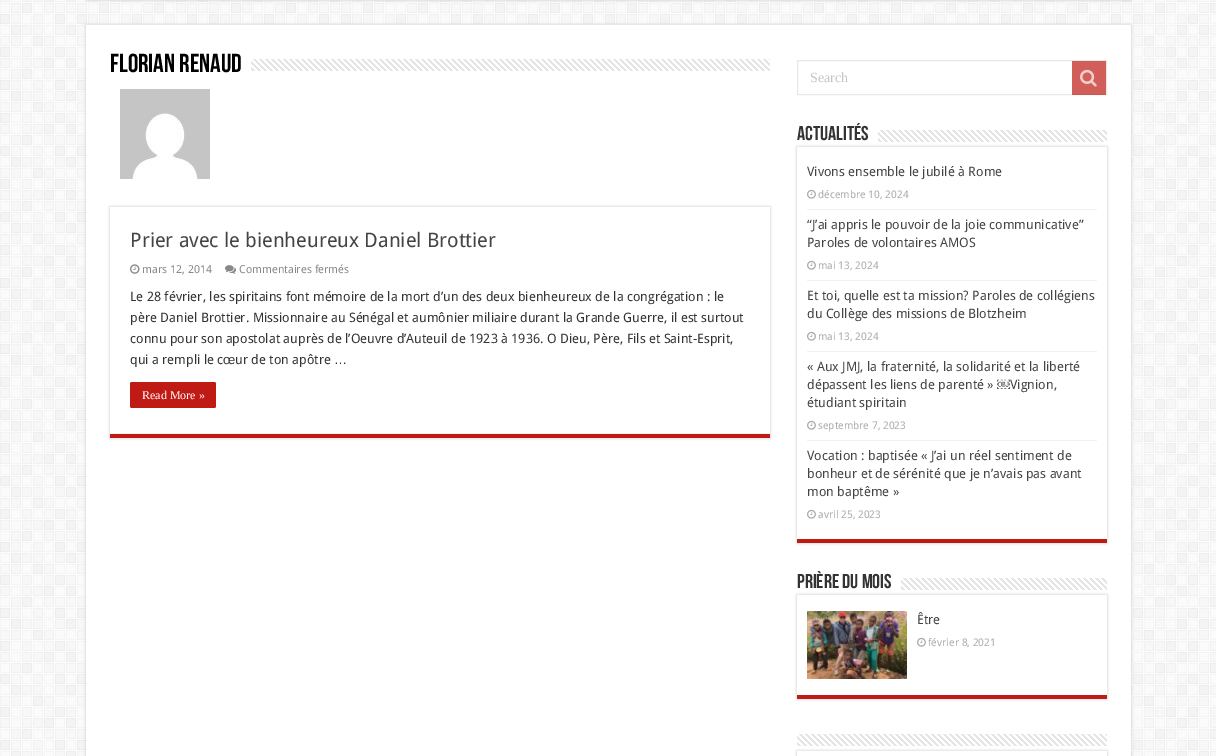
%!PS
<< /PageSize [1216 756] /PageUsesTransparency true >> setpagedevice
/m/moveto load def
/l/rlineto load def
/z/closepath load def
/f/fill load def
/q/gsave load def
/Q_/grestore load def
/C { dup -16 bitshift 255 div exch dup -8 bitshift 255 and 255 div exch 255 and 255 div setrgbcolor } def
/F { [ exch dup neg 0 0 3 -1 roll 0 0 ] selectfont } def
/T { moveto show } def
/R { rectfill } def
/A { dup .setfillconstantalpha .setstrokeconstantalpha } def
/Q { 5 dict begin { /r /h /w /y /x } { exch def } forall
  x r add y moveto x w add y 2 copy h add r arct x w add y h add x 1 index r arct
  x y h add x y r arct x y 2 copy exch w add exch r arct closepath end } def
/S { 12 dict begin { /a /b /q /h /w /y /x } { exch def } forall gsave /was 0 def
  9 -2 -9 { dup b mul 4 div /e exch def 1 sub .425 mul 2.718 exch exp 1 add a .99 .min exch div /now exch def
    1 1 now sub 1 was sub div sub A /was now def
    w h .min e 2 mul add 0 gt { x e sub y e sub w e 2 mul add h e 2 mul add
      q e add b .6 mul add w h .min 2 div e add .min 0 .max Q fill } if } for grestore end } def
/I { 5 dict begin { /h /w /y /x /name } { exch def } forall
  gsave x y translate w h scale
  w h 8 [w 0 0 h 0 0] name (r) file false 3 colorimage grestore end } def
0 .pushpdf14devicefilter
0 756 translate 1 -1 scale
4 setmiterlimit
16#FFFFFF C
0 0 1216 756 R
(1.rgb) 0 0 1216 756 I
16#CACACA C
86 -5 1045 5 0 1.5 1 S
86 25 1045 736 0 1.5 1 S
16#FFFFFF C
86 25 1045 731 R
/BebasNeue-Bold 26 F
16#000000 C
(Florian Renaud) 110 72 T
(2.rgb) 251 59 519 12 I
(3.rgb) 120 89 90 90 I
q
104 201 m 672 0 l 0 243 l -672 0 l z 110 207 m 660 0 l 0 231 l -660 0 l z eoclip newpath
16#CACACA C
110 207 660 231 0 1.5 1 S
Q_
16#BF1A13 C
110 434 660 4 R
16#F2F2F2 C
110 433 660 1 R
/DroidSans-Regular 20 F
16#444444 C
(Prier avec le bienheureux Daniel Brottier) 130 247 T
(4.rgb) 130 264 10 10 I
/DroidSans-Regular 11 F
16#888888 C
(mars 12, 2014) 142 273 T
(5.rgb) 225 265 11 9 I
(Commentaires fermés) 239 273 T
/DroidSans-Regular 13 F
16#333333 C
(Le 28 février, les spiritains font mémoire de la mort d’un des deux bienheureux de la congrégation : le) 130 301 T
(père Daniel Brottier. Missionnaire au Sénégal et aumônier miliaire durant la Grande Guerre, il est surtout) 130 322 T
(connu pour son apostolat auprès de l’Oeuvre d’Auteuil de 1923 à 1936. O Dieu, Père, Fils et Saint-Esprit,) 130 343 T
(qui a rempli le c) 130 364 T
/LiberationSans-Regular 13 F
(œ) 223 364 T
/DroidSans-Regular 13 F
(ur de ton apôtre) 235 364 T
/LiberationSans-Regular 13 F
(…) 334 364 T
16#BF1A13 C
130 382 86 26 2 Q f
/LiberationSerif-Regular 12 F
16#FFFFFF C
(Read More ») 142 399 T
16#E8E8E8 C
797.5 60.5 309 34 rectstroke
/LiberationSerif-Regular 14 F
16#C5C5C5 C
(Search) 810 82 T
0.7 A
16#BF1A13 C
1072 61 34 34 R
1 A
(6.rgb) 1080 69 17 18 I
/BebasNeue-Bold 20 F
16#333333 C
(Actualités) 797 140 T
q
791 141 m 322 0 l 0 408 l -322 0 l z 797 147 m 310 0 l 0 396 l -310 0 l z eoclip newpath
16#CACACA C
797 147 310 396 0 1.5 1 S
Q_
(7.rgb) 878 130 229 12 I
16#BF1A13 C
797 539 310 4 R
16#F2F2F2 C
807 209 290 1 R
/DroidSans-Regular 13 F
16#444444 C
(Vivons ensemble le jubilé à Rome) 807 176 T
(8.rgb) 807 189 9 10 I
/DroidSans-Regular 10.5 F
16#AAAAAA C
(décembre 10, 2024) 818 198 T
16#F2F2F2 C
807 280 290 1 R
/DroidSans-Regular 13 F
16#444444 C
(“J’ai appris le pouvoir de la joie communicative”) 807 229 T
(Paroles de volontaires AMOS) 807 247 T
(8.rgb) 807 260 9 10 I
/DroidSans-Regular 10.5 F
16#AAAAAA C
(mai 13, 2024) 818 269 T
16#F2F2F2 C
807 351 290 1 R
/DroidSans-Regular 13 F
16#444444 C
(Et toi, quelle est ta mission? Paroles de collégiens) 807 300 T
(du Collège des missions de Blotzheim) 807 318 T
(8.rgb) 807 331 9 10 I
/DroidSans-Regular 10.5 F
16#AAAAAA C
(mai 13, 2024) 818 340 T
16#F2F2F2 C
807 440 290 1 R
/DroidSans-Regular 13 F
16#444444 C
(« Aux JMJ, la fraternité, la solidarité et la liberté) 807 371 T
(dépassent les liens de parenté ») 807 389 T
/LiberationSans-Regular 13 F
(￼) 997 389 T
/DroidSans-Regular 13 F
(Vignion,) 1010 389 T
(étudiant spiritain) 807 407 T
(8.rgb) 807 420 9 10 I
/DroidSans-Regular 10.5 F
16#AAAAAA C
(septembre 7, 2023) 818 429 T
/DroidSans-Regular 13 F
16#444444 C
(Vocation : baptisée « J’ai un réel sentiment de) 807 460 T
(bonheur et de sérénité que je n’avais pas avant) 807 478 T
(mon baptême ») 807 496 T
(8.rgb) 807 509 9 10 I
/DroidSans-Regular 10.5 F
16#AAAAAA C
(avril 25, 2023) 818 518 T
/BebasNeue-Bold 20 F
16#333333 C
(Prière du mois) 797 588 T
q
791 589 m 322 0 l 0 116 l -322 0 l z 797 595 m 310 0 l 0 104 l -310 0 l z eoclip newpath
16#CACACA C
797 595 310 104 0 1.5 1 S
Q_
(9.rgb) 901 578 206 12 I
16#BF1A13 C
797 695 310 4 R
(10.rgb) 807 611 100 68 I
/DroidSans-Regular 13 F
16#444444 C
(Être) 917 624 T
(8.rgb) 917 637 9 10 I
/DroidSans-Regular 10.5 F
16#AAAAAA C
(février 8, 2021) 928 646 T
q
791 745 m 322 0 l 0 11 l -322 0 l z 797 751 m 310 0 l 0 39 l -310 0 l z eoclip newpath
16#CACACA C
797 751 310 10 0 1.5 1 S
Q_
(11.rgb) 797 734 310 12 I
.poppdf14devicefilter showpage
